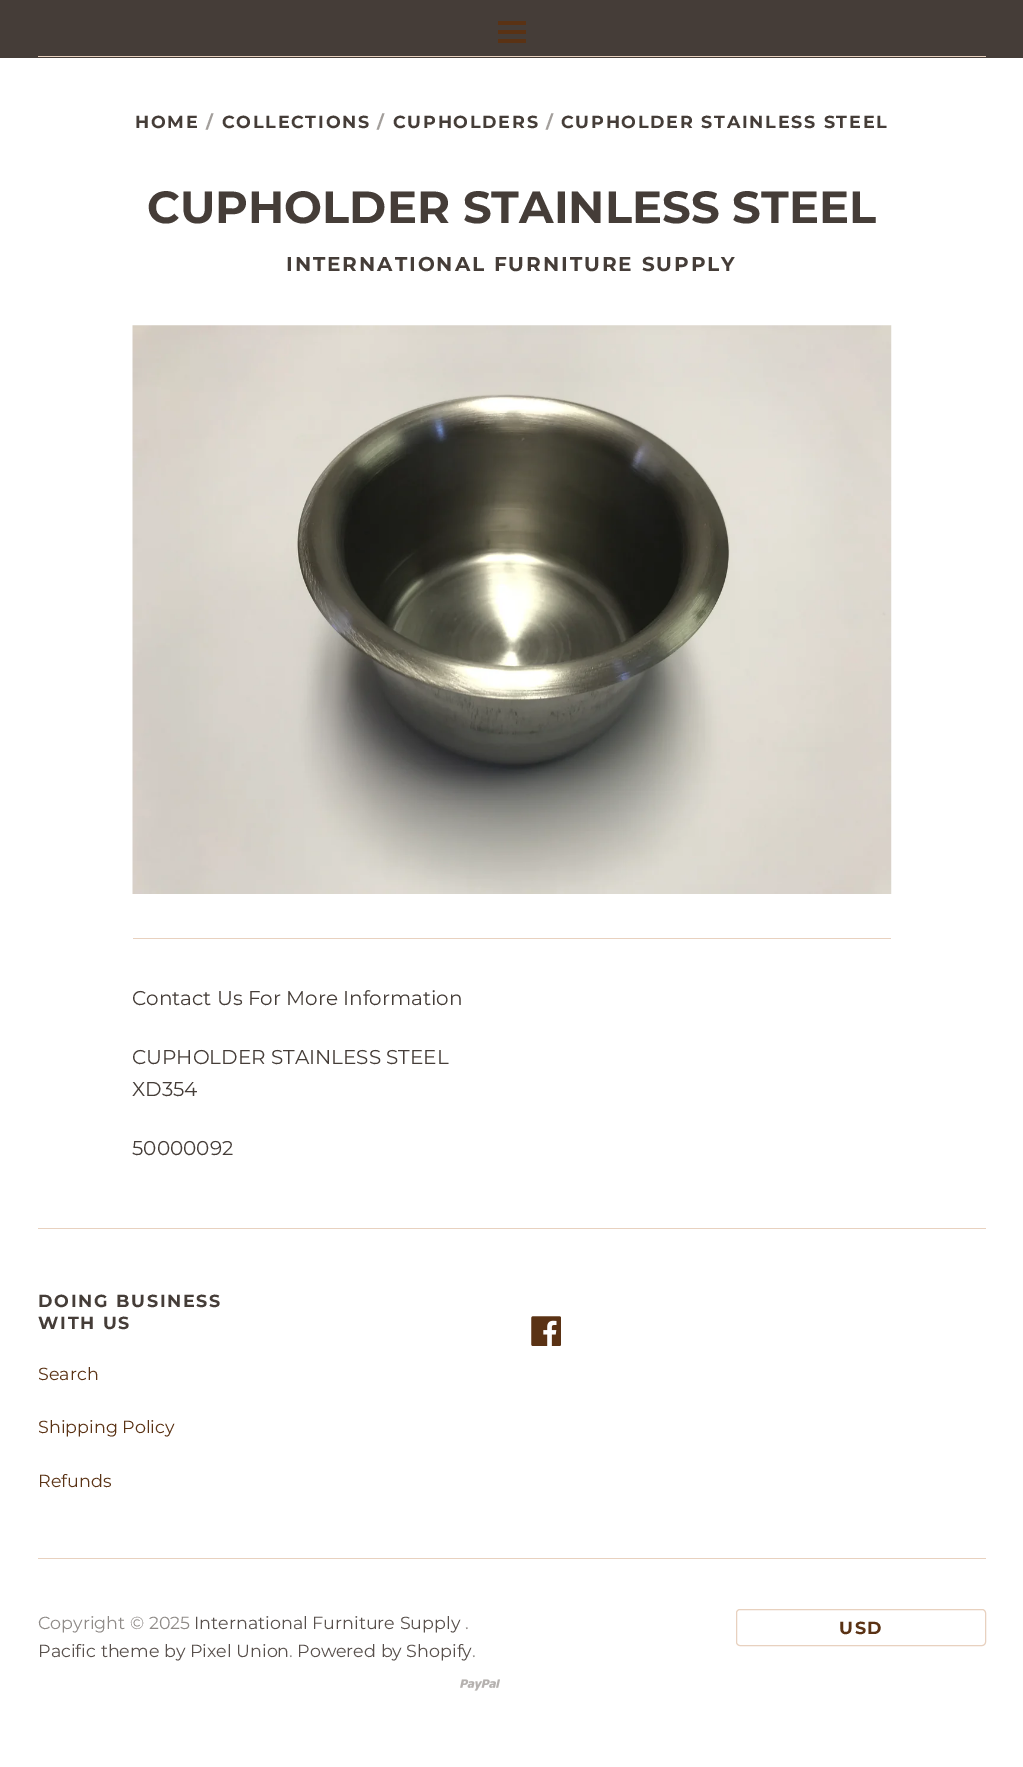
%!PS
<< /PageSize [1023 1767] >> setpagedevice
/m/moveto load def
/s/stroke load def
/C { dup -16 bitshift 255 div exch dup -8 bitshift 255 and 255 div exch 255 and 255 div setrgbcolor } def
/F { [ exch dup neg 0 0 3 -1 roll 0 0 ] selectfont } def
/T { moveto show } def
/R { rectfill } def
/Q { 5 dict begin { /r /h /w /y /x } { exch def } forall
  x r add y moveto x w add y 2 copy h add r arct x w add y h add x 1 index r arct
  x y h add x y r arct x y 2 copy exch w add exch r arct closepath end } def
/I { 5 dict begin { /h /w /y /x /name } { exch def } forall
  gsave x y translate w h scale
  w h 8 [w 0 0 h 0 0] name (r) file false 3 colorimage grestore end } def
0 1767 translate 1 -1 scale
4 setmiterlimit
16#FFFFFF C
0 0 1023 1767 R
16#453D38 C
0 0 1023 58 R
16#E8D1BF C
38 56 948 1 R
16#5A3214 C
498 30 28 4 R
498 21 28 4 R
498 39 28 4 R
/Montserrat-Bold 17.5 F
16#453D38 C
135 128 m 1.75 0 (HOME) ashow
16#A29E9B C
206 128 m 1.75 0 (/) ashow
16#453D38 C
222 128 m 1.75 0 (COLLECTIONS) ashow
16#A29E9B C
377 128 m 1.75 0 (/) ashow
16#453D38 C
393 128 m 1.75 0 (CUPHOLDERS) ashow
16#A29E9B C
546 128 m 1.75 0 (/) ashow
16#453D38 C
561 128 m 1.75 0 (CUPHOLDER STAINLESS STEEL) ashow
/Montserrat-Bold 45 F
(CUPHOLDER STAINLESS STEEL) 147 223 T
/Montserrat-Bold 20 F
286 271 m 2 0 (INTERNATIONAL FURNITURE SUPPLY) ashow
(1.rgb) 132 325 760 569 I
16#E8D1BF C
133 938 758 1 R
/Montserrat-Regular 20 F
16#453D38 C
(Contact Us For More Information) 132 1005 T
(CUPHOLDER STAINLESS STEEL) 132 1064 T
(XD354) 132 1096 T
(50000092) 132 1155 T
16#E8D1BF C
38 1228 948 1 R
/Montserrat-Bold 17.5 F
16#453D38 C
38 1307 m 1.75 0 (DOING BUSINESS) ashow
38 1329 m 1.75 0 (WITH US) ashow
/Montserrat-Regular 17.5 F
16#5A3214 C
(Search) 38 1380 T
(Shipping Policy) 38 1433 T
(Refunds) 38 1487 T
(2.rgb) 531 1316 30 30 I
16#E8D1BF C
38 1558 948 1 R
16#8F8B88 C
(Copyright © 2025) 38 1629 T
16#58504C C
(International Furniture Supply) 194 1629 T
16#8F8B88 C
(.) 465 1629 T
16#58504C C
(Pacific theme by Pixel Union) 38 1657 T
16#8F8B88 C
(.) 289 1657 T
16#58504C C
(Powered by Shopify) 297 1657 T
16#8F8B88 C
(.) 472 1657 T
16#E8D1BF C
736.5 1609.5 249 36 3.5 Q s
/Montserrat-Bold 17.5 F
16#5A3214 C
839 1634 m 1.75 0 (USD) ashow
(3.rgb) 460 1679 40 12 I
showpage
